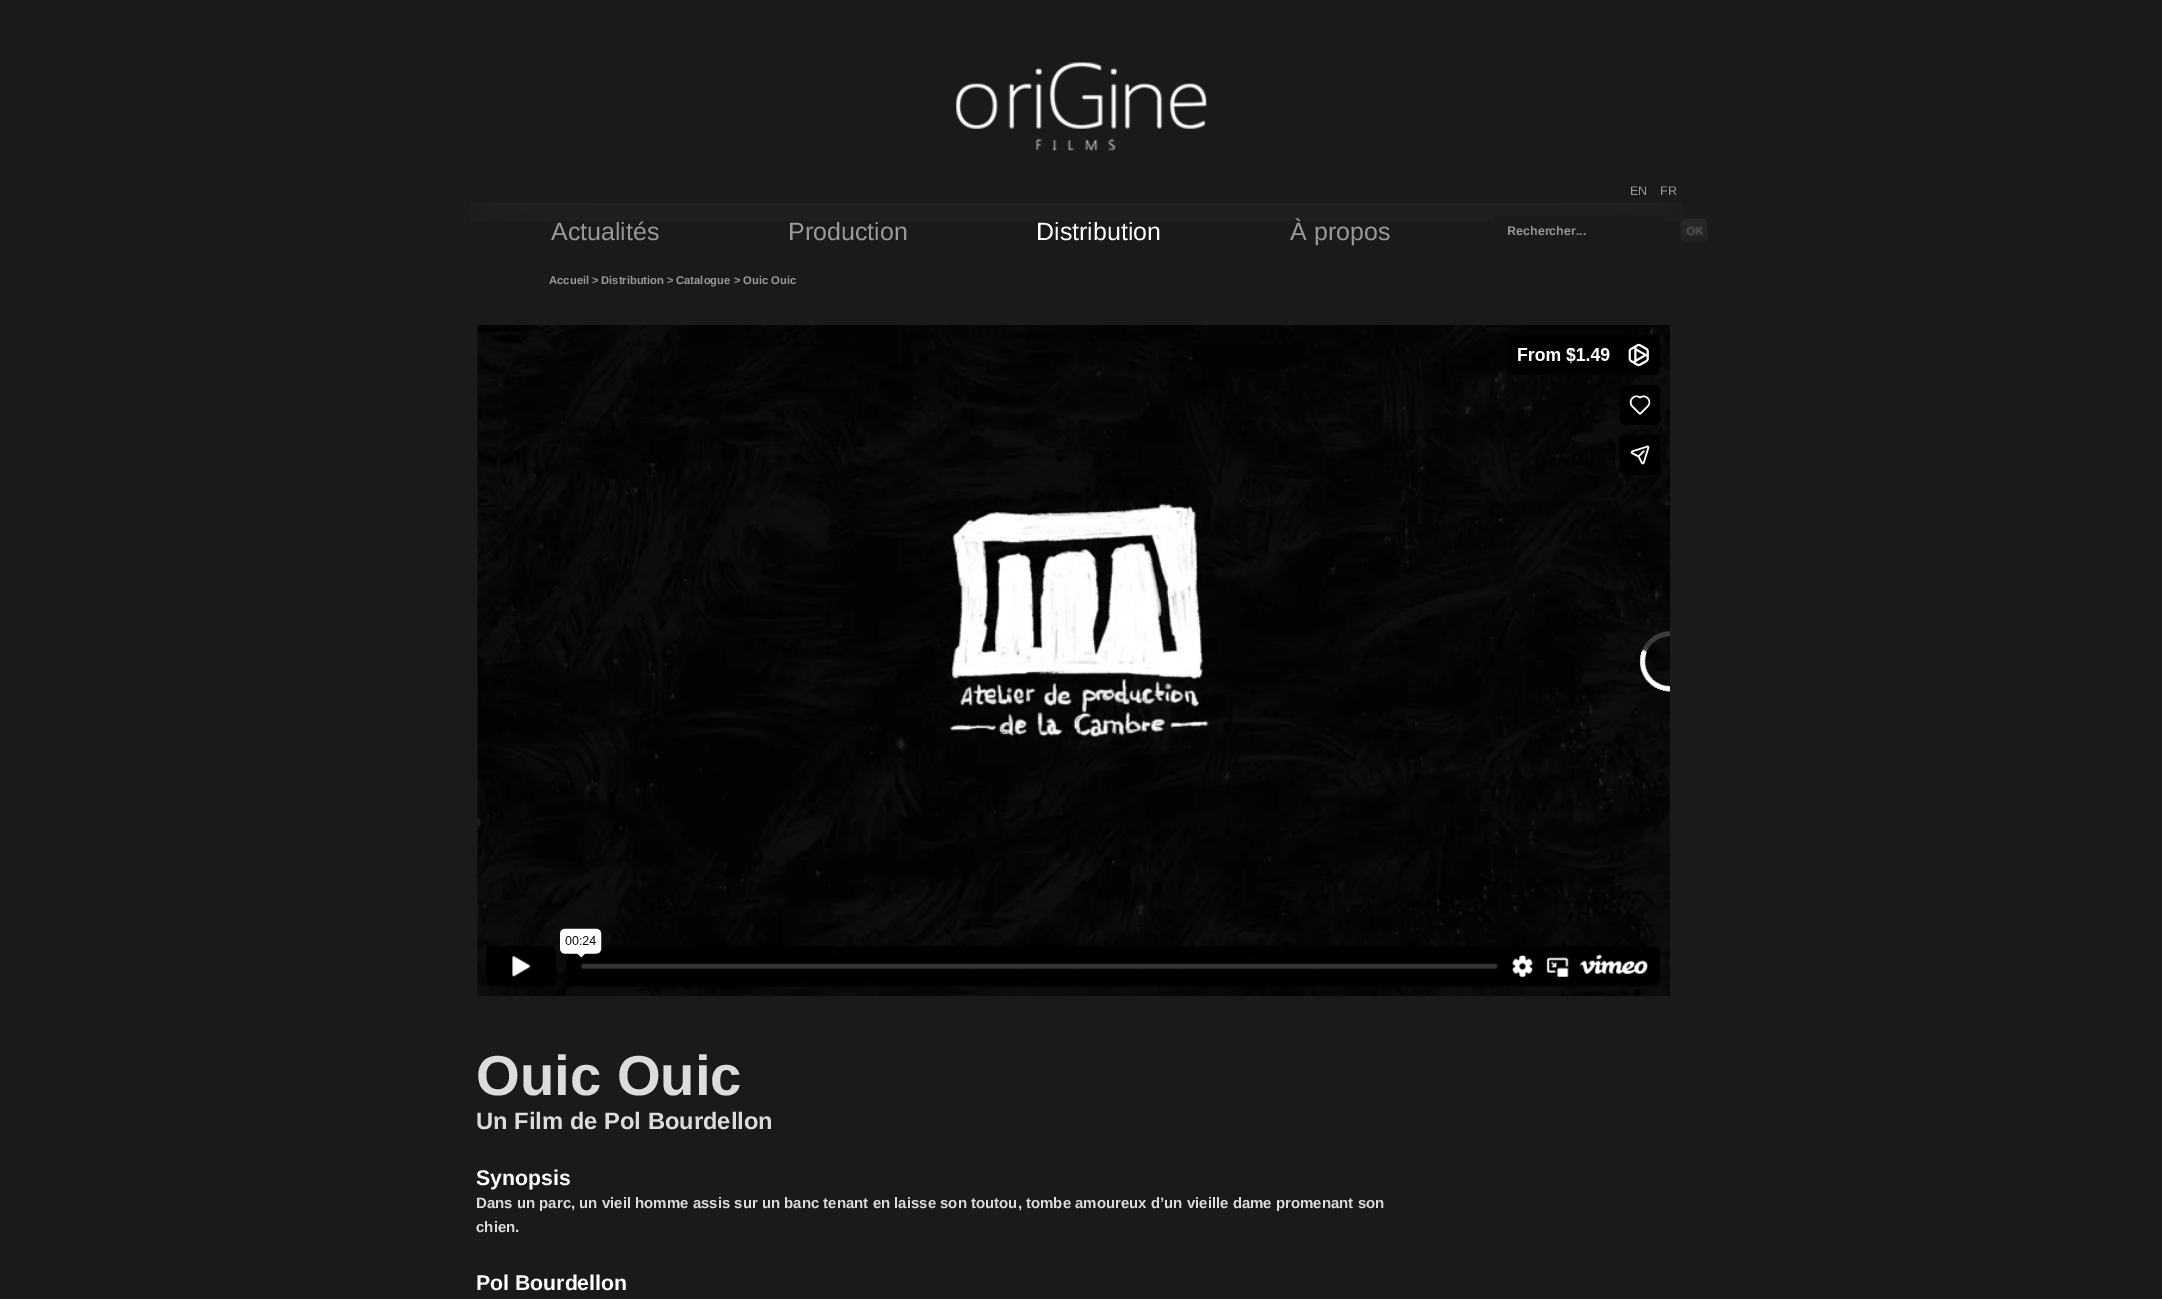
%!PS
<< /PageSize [2162 1299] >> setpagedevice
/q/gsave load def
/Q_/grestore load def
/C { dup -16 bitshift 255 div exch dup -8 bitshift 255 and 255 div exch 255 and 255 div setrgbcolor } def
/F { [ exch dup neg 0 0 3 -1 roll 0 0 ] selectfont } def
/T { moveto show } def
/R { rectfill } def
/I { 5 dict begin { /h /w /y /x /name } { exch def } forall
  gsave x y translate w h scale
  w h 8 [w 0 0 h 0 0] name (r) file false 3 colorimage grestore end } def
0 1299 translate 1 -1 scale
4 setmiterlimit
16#1A1A1A C
0 0 2162 1299 R
(1.rgb) 956 62 251 89 I
/LiberationSans-Regular 12.5 F
16#999999 C
(EN) 1630 195 T
(FR) 1660 195 T
(2.rgb) 469 203 1214 18 I
/LiberationSans-Regular 25 F
(Actualités) 551 240 T
(Production) 788 240 T
16#FFFFFF C
(Distribution) 1036 240 T
16#999999 C
(À propos) 1290 240 T
16#1A1A1A C
1494 216 170 5 R
q
1508 224 146 14 rectclip
/LiberationSans-Bold 12.5 F
16#999999 C
(Rechercher...) 1507 235 T
Q_
(3.rgb) 1680 218 28 24 I
/LiberationSans-Bold 11.25 F
16#999999 C
(Accueil) 549 284 T
(>) 592 284 T
(Distribution) 601 284 T
(>) 667 284 T
(Catalogue) 676 284 T
(>) 734 284 T
(Ouic Ouic) 743 284 T
(4.rgb) 477 325 1193 671 I
/LiberationSans-Bold 56.25 F
16#DCDCDC C
(Ouic Ouic) 476 1095 T
/LiberationSans-Bold 23.75 F
(Un Film de Pol Bourdellon) 476 1129 T
/LiberationSans-Bold 21.25 F
16#FFFFFF C
(Synopsis) 476 1185 T
/LiberationSans-Bold 15 F
16#DCDCDC C
(Dans un parc, un vieil homme assis sur un banc tenant en laisse son toutou, tombe amoureux d’un vieille dame promenant son) 476 1208 T
(chien.) 476 1232 T
/LiberationSans-Bold 21.25 F
16#FFFFFF C
(Pol Bourdellon) 476 1290 T
showpage
